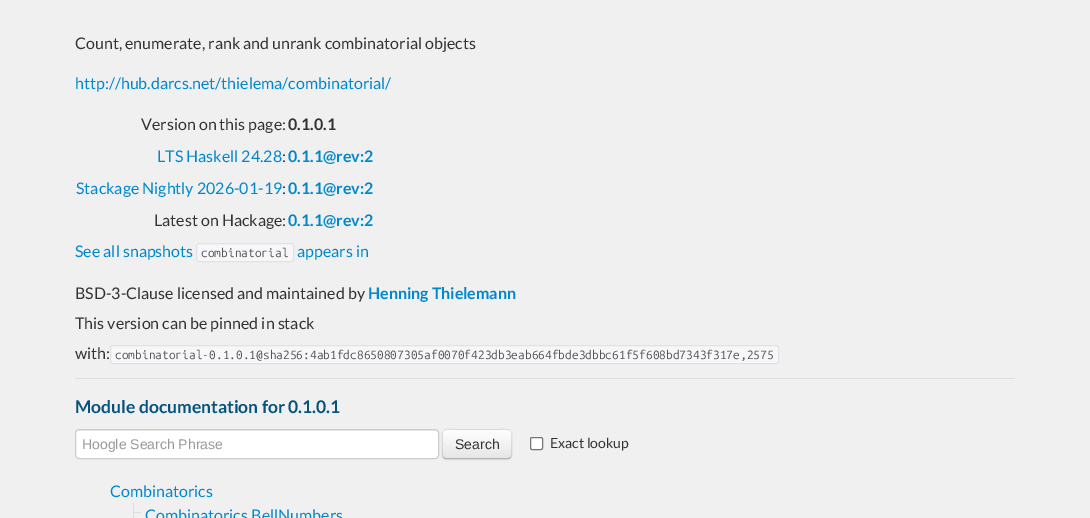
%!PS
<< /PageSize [1090 518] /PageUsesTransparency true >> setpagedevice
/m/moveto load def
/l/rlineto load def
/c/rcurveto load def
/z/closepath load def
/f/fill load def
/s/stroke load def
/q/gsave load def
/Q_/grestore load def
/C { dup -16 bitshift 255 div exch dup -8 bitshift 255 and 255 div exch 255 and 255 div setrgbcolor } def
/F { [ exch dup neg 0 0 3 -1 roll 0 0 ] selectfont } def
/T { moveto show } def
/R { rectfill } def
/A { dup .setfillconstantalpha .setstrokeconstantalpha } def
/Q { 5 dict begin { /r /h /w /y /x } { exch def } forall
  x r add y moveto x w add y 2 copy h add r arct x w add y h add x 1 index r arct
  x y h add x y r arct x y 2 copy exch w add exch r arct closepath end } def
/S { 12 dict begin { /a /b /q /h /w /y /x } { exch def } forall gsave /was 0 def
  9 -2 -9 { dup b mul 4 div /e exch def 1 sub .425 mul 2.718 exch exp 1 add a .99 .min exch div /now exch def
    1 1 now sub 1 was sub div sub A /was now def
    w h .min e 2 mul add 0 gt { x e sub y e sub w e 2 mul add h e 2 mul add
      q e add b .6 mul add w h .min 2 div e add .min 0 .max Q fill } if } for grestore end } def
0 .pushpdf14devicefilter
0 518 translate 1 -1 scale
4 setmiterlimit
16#F0F0F0 C
0 0 1090 518 R
/Lato-Regular 16 F
16#333333 C
(Count, enumerate, rank and unrank combinatorial objects) 75 49 T
16#0088CC C
(http://hub.darcs.net/thielema/combinatorial/) 75 89 T
16#333333 C
(Version on this page:) 141 130 T
/Lato-Bold 16 F
(0.1.0.1) 288 130 T
/Lato-Regular 16 F
16#0088CC C
(LTS Haskell 24.28) 157 162 T
16#333333 C
(:) 282 162 T
/Lato-Bold 16 F
16#0088CC C
(0.1.1@rev:2) 288 162 T
/Lato-Regular 16 F
(Stackage Nightly 2026-01-19) 76 194 T
16#333333 C
(:) 282 194 T
/Lato-Bold 16 F
16#0088CC C
(0.1.1@rev:2) 288 194 T
/Lato-Regular 16 F
16#333333 C
(Latest on Hackage:) 154 226 T
/Lato-Bold 16 F
16#0088CC C
(0.1.1@rev:2) 288 226 T
/Lato-Regular 16 F
(See all snapshots) 75 257 T
16#F7F7F9 C
196.5 243.5 97 18 2.5 Q q f Q_
16#E1E1E8 C
s
/UbuntuMono-Regular 12 F
16#555555 C
(combinatorial) 201 257 T
/Lato-Regular 16 F
16#0088CC C
(appears in) 297 257 T
16#333333 C
(BSD-3-Clause licensed and maintained by) 75 299 T
/Lato-Bold 16 F
16#0088CC C
(Henning Thielemann) 368 299 T
/Lato-Regular 16 F
16#333333 C
(This version can be pinned in stack) 75 329 T
(with:) 75 359 T
16#F7F7F9 C
110.5 345.5 668 18 2.5 Q q f Q_
16#E1E1E8 C
s
/UbuntuMono-Regular 12 F
16#555555 C
(combinatorial-0.1.0.1@sha256:4ab1fdc8650807305af0070f423db3eab664fbde3dbbc61f5f608bd7343f317e,2575) 115 359 T
16#DDDDDD C
75 378 940 1 R
/Lato-Bold 17.5 F
16#06537D C
(Module documentation for 0.1.0.1) 75 413 T
16#FFFFFF C
75 429 364 30 4 Q f
16#ECECEC C
79 431 m 356 0 l 2 0 3 1 3 3 c 0 -2 -1 -4 -3 -4 c -356 0 l -2 1 l -1 3 l 0 -2 1 -3 3 -3 c z f
16#CCCCCC C
75.5 429.5 363 29 3.5 Q s
/LiberationSans-Regular 14 F
16#999999 C
(Hoogle Search Phrase) 82 449 T
16#000000 C
442 430 70 30 4 1 .05 S
16#F5F5F5 C
442 429 70 30 4 Q f
q
442 429 70 30 4 Q clip newpath
q 442 430 m 70 0 l 0 28 l -70 0 l z clip newpath
<< /ShadingType 2 /ColorSpace /DeviceRGB /Coords [477 430 477 458] /Extend [true true] /Function << /FunctionType 2 /Domain [0 1] /C0 [1 1 1] /C1 [.902 .902 .902] /N 1 >> >> shfill Q_
Q_
16#B3B3B3 C
510.5 457.5 m -2 1 l -63 0 l -2 -1 l s
0.1 A
16#000000 C
443.5 457.5 m -2 -2 -1 -10.5 -1 -13.5 c 0 -16 -2.5 -14.5 14 -14.5 c 41 0 l 16.5 0 14 -1.5 14 14.5 c 0 3 1 11.5 -1 13.5 c s
1 A
16#333333 C
(Search) 455 449 T
16#FFFFFF C
530.5 437.5 12 12 1.5 Q q f Q_
16#767676 C
s
/Lato-Regular 14 F
16#333333 C
(Exact lookup) 550 448 T
/Lato-Regular 16 F
16#0088CC C
(Combinatorics) 110 497 T
16#DDDDDD C
133 512 8 1 R
133 503 1 15 R
16#0088CC C
(Combinatorics.BellNumbers) 145 521 T
.poppdf14devicefilter showpage
